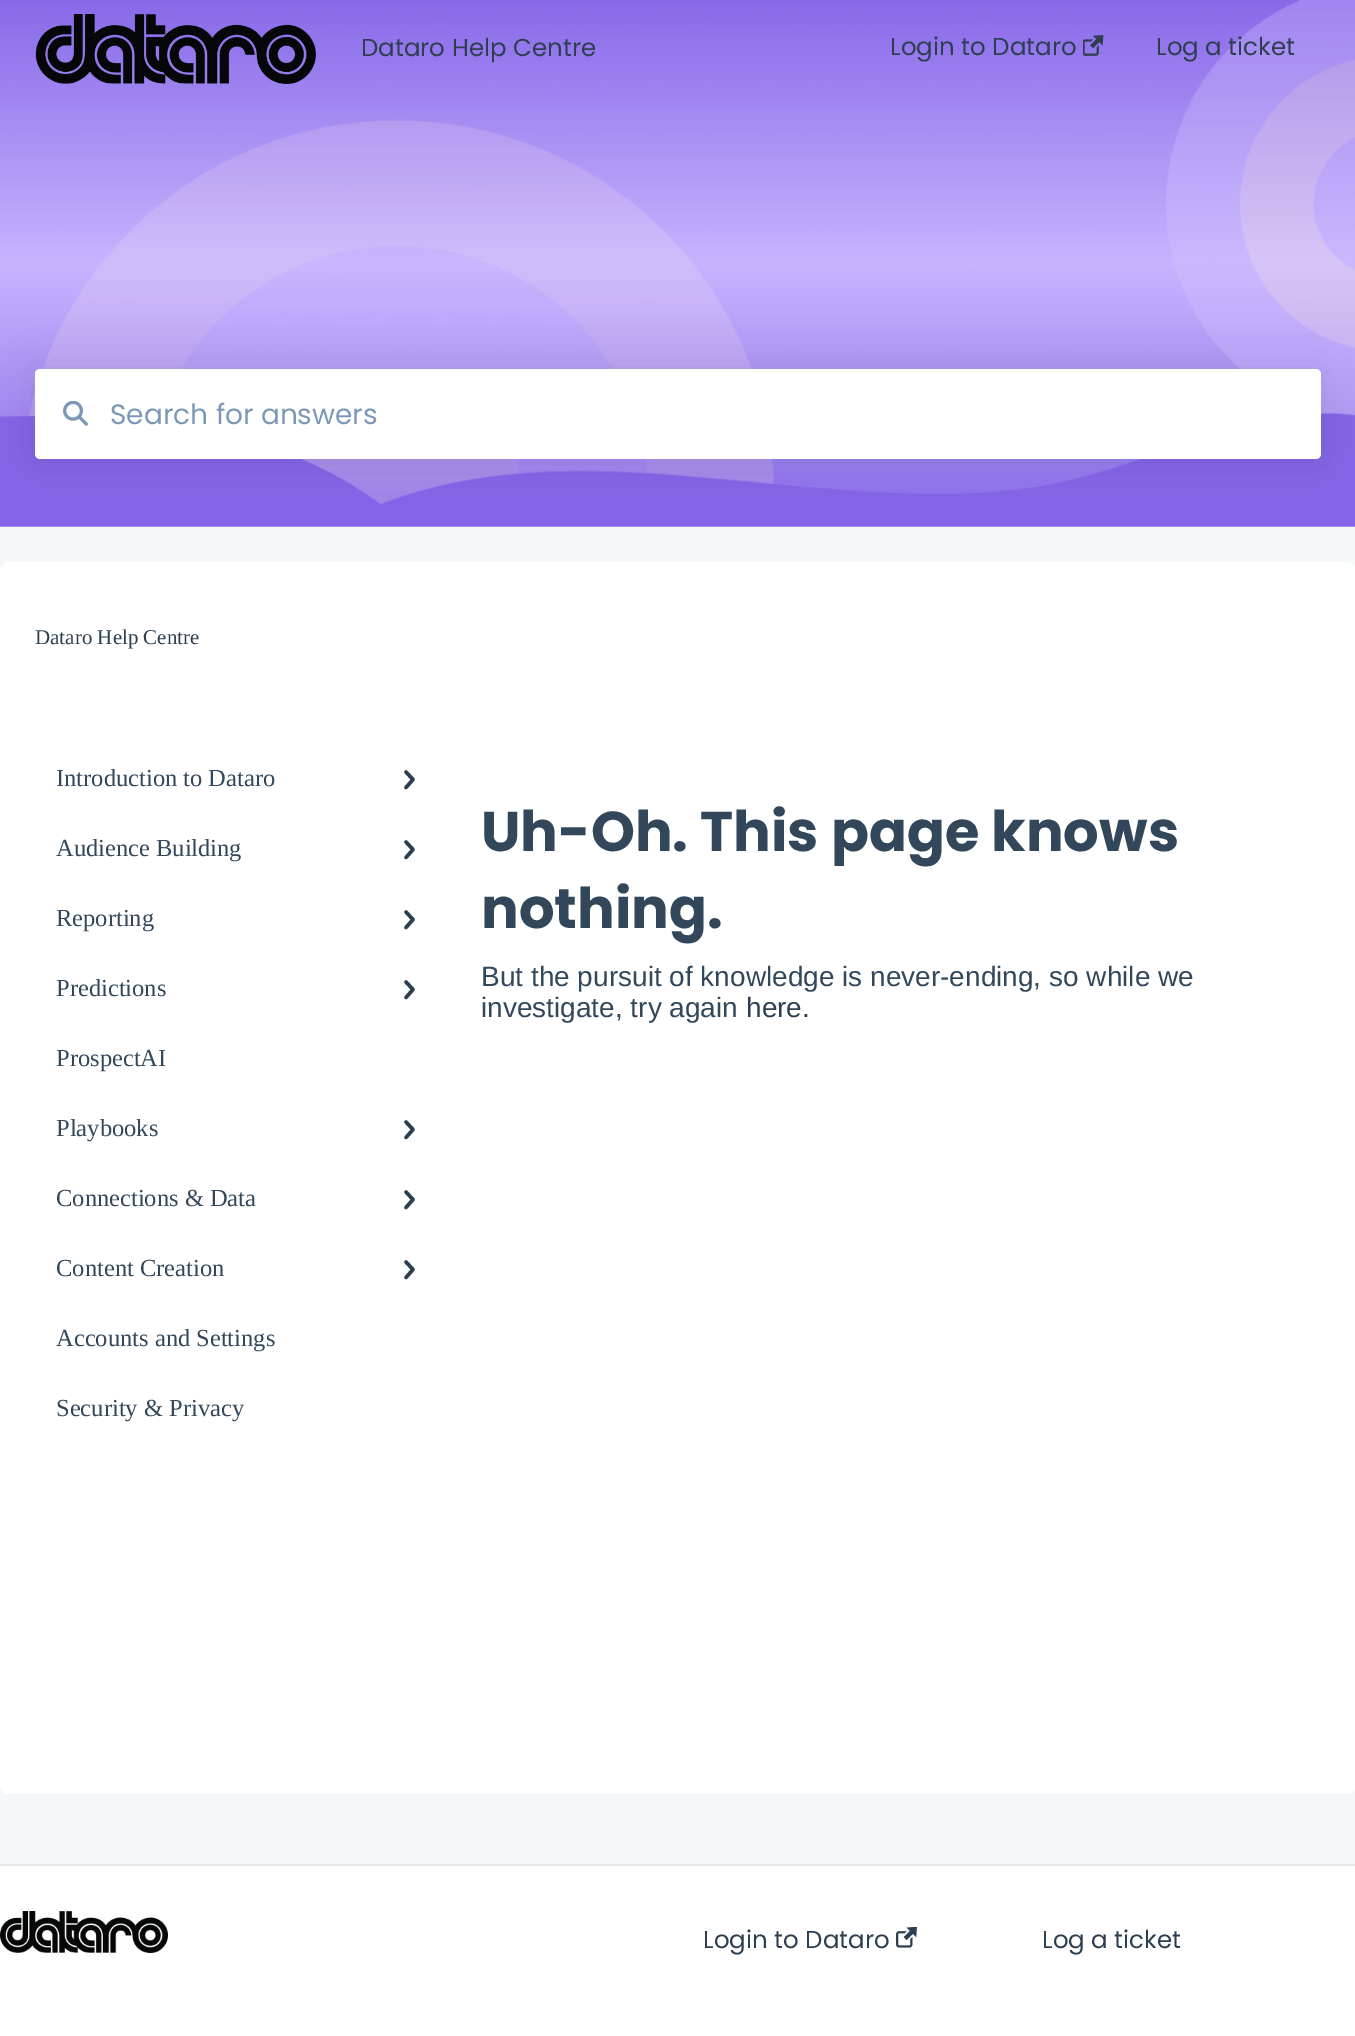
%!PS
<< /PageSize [1355 2036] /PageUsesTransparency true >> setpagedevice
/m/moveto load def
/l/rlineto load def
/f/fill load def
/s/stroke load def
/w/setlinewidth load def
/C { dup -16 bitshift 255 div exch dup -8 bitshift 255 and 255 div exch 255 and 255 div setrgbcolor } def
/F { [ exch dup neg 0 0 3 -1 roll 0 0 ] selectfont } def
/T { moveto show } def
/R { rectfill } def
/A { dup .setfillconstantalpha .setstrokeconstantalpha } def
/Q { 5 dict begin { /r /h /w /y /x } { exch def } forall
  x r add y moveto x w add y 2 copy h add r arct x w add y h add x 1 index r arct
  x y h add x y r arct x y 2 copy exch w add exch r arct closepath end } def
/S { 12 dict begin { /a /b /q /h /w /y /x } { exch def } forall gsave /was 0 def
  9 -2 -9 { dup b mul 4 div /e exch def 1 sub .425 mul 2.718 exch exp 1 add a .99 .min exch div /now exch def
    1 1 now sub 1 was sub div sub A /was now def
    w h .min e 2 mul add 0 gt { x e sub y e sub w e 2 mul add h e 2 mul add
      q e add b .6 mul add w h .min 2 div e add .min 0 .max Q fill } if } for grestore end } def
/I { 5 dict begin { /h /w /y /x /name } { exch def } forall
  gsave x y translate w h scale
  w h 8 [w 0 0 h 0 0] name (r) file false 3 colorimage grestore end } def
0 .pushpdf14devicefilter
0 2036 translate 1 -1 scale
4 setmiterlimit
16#F5F8FA C
0 0 1355 2036 R
(3.rgb) 0 0 1355 527 I
(1.rgb) 35 14 281 70 I
/Poppins-Regular 24.5 F
16#2D3E50 C
(Dataro Help Centre) 361 56 T
(Login to Dataro) 890 55 T
(2.rgb) 1083 35 21 21 I
(Log a ticket) 1156 55 T
16#000000 C
35 371 1286 89 5 21 .08 S
16#FFFFFF C
35 369 1286 90 5 Q f
(4.rgb) 63 401 25 25 I
/Poppins-Regular 28 F
16#7C98B6 C
(Search for answers) 110 424 T
16#FFFFFF C
0 562 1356 1232 9 Q f
/LiberationSerif-Regular 21 F
16#2D3E50 C
(Dataro Help Centre) 35 644 T
/LiberationSerif-Regular 24.5 F
16#33475B C
(Introduction to Dataro) 56 786 T
16#2D3E50 C
3.5 w
1 setlinecap
1 setlinejoin
406 772 m 7 7.5 l -7 8 l s
16#33475B C
(Audience Building) 56 856 T
16#2D3E50 C
406 842 m 7 7.5 l -7 8 l s
16#33475B C
(Reporting) 56 926 T
16#2D3E50 C
406 912 m 7 7.5 l -7 8 l s
16#33475B C
(Predictions) 56 996 T
16#2D3E50 C
406 982 m 7 7.5 l -7 8 l s
16#33475B C
(ProspectAI) 56 1066 T
(Playbooks) 56 1136 T
16#2D3E50 C
406 1122 m 7 7.5 l -7 8 l s
16#33475B C
(Connections & Data) 56 1206 T
16#2D3E50 C
406 1192 m 7 7.5 l -7 8 l s
16#33475B C
(Content Creation) 56 1276 T
16#2D3E50 C
406 1262 m 7 7.5 l -7 8 l s
16#33475B C
(Accounts and Settings) 56 1346 T
(Security & Privacy) 56 1416 T
/Poppins-Bold 56 F
(Uh-Oh. This page knows) 481 851 T
(nothing.) 481 928 T
/LiberationSans-Regular 28 F
(But the pursuit of knowledge is never-ending, so while we) 481 986 T
(investigate, try again) 481 1017 T
16#2D3E50 C
(here.) 746 1017 T
16#FFFFFF C
0 1866 1355 170 R
16#E6E6E6 C
0 1864 1355 2 R
(5.rgb) 0 1911 168 42 I
/Poppins-Regular 24.5 F
16#2D3E50 C
(Login to Dataro) 703 1948 T
(6.rgb) 896 1927 21 21 I
(Log a ticket) 1042 1948 T
.poppdf14devicefilter showpage
